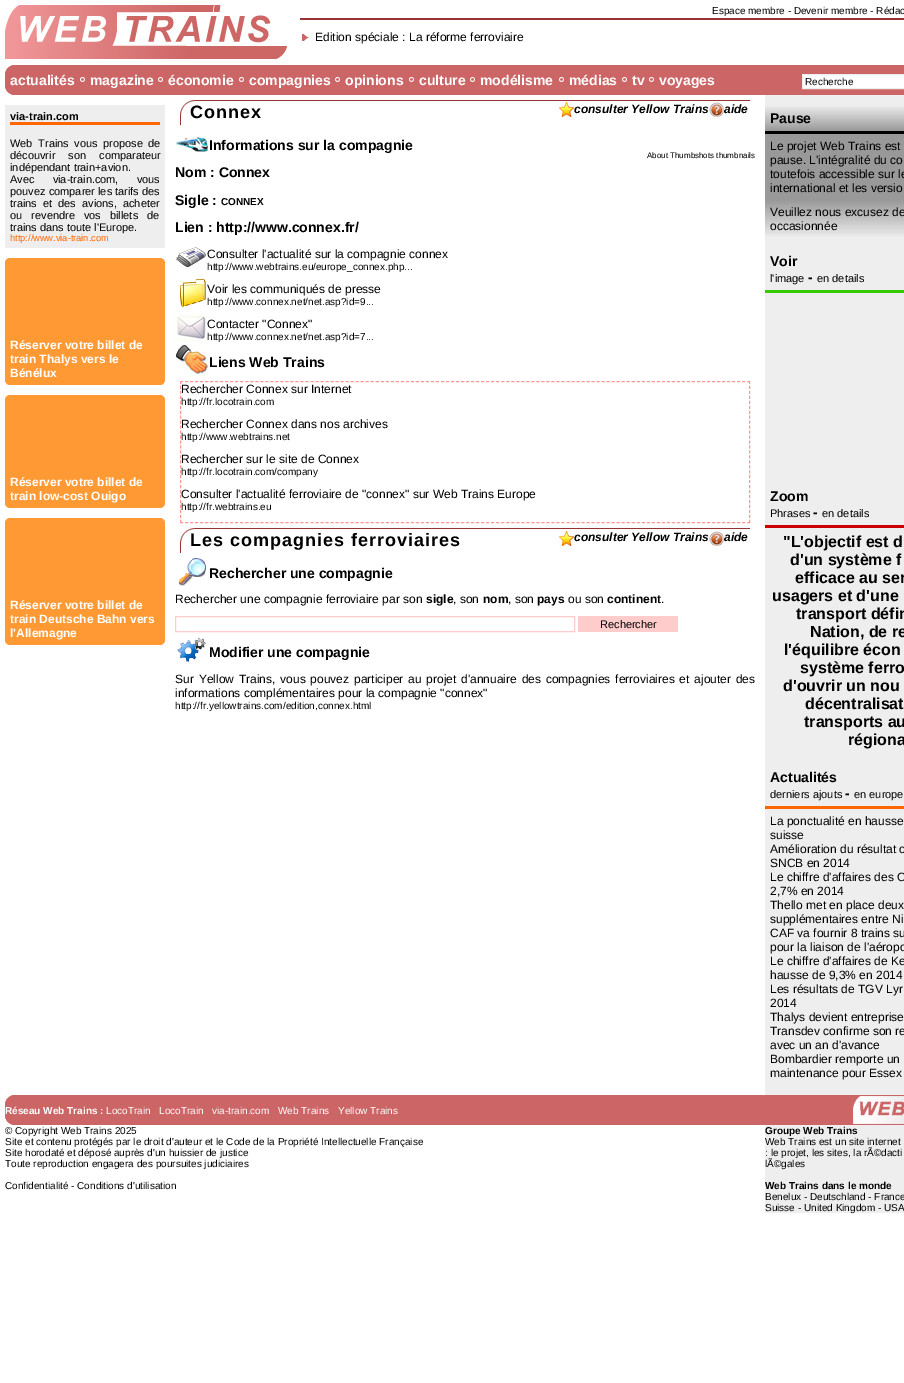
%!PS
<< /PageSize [904 1383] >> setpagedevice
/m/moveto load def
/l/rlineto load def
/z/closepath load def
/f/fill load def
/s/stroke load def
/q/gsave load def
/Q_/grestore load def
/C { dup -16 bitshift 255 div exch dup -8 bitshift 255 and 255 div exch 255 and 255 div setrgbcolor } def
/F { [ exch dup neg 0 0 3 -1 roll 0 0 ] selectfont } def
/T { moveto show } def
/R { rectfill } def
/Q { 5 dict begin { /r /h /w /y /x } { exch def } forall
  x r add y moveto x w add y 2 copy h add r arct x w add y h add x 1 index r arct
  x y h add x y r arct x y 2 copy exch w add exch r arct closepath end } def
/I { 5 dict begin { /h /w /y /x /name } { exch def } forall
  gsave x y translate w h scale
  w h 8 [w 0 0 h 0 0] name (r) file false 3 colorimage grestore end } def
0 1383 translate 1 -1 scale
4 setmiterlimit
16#FFFFFF C
0 0 904 1383 R
(1.rgb) 5 5 282 54 I
16#993333 C
300 18 604 2 R
/LiberationSans-Regular 10 F
16#000000 C
(Espace membre - Devenir membre - Rédac) 712 14 T
(2.rgb) 301 34 8 7 I
/LiberationSans-Regular 12 F
(Edition spéciale : La réforme ferroviaire) 315 41 T
(3.rgb) 5 65 899 30 I
(4.rgb) 80 77 5 5 I
/LiberationSans-Bold 14 F
16#FFFFFF C
(actualités) 10 85 T
(4.rgb) 158 77 5 5 I
(magazine) 90 85 T
(4.rgb) 239 77 5 5 I
(économie) 168 85 T
(4.rgb) 335 77 5 5 I
(compagnies) 249 85 T
(4.rgb) 409 77 5 5 I
(opinions) 345 85 T
(4.rgb) 470 77 5 5 I
(culture) 419 85 T
(4.rgb) 559 77 5 5 I
(modélisme) 480 85 T
(4.rgb) 622 77 5 5 I
(médias) 569 85 T
(4.rgb) 649 77 5 5 I
(tv) 632 85 T
(voyages) 659 85 T
802.5 74.5 m 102 0 l 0 14 l -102 0 l z q f Q_
16#EEEEEE C
s
/LiberationSans-Regular 10 F
16#000000 C
(Recherche) 805 85 T
16#EEEEEE C
5 105 160 143 R
/LiberationSans-Bold 11 F
16#000000 C
(via-train.com) 10 120 T
16#FF6600 C
10 122 150 3 R
/LiberationSans-Regular 11 F
16#000000 C
10 147 m 2.5 0 32 (Web Trains vous propose de) widthshow
10 159 m 10 0 32 (découvrir son comparateur) widthshow
(indépendant train+avion.) 10 171 T
10 183 m 15 0 32 (Avec via-train.com, vous) widthshow
(pouvez comparer les tarifs des) 10 195 T
10 207 m 3 0 32 (trains et des avions, acheter) widthshow
10 219 m 6 0 32 (ou revendre vos billets de) widthshow
(trains dans toute l'Europe.) 10 231 T
/LiberationSans-Regular 9.25 F
16#FF6600 C
(http://www.via-train.com) 10 241 T
16#FF9933 C
5 258 160 127 5 Q f
/LiberationSans-Bold 12 F
16#FFFFFF C
(Réserver votre billet de) 10 349 T
(train Thalys vers le) 10 363 T
(Bénélux) 10 377 T
16#FF9933 C
5 395 160 113 5 Q f
16#FFFFFF C
(Réserver votre billet de) 10 486 T
(train low-cost Ouigo) 10 500 T
16#FF9933 C
5 518 160 127 5 Q f
16#FFFFFF C
(Réserver votre billet de) 10 609 T
(train Deutsche Bahn vers) 10 623 T
(l'Allemagne) 10 637 T
(5.rgb) 180 100 570 25 I
/LiberationSans-Bold 18 F
16#000000 C
190 118 m 1 0 (Connex) ashow
(6.rgb) 559 102 15 15 I
/LiberationSans-BoldItalic 12 F
(consulter Yellow Trains) 574 113 T
(7.rgb) 709 102 15 15 I
(aide) 724 113 T
(8.rgb) 176 137 32 15 I
/LiberationSans-Bold 14 F
(Informations sur la compagnie) 209 150 T
/LiberationSans-Regular 8 F
(About Thumbshots thumbnails) 647 158 T
/LiberationSans-Bold 14 F
(Nom : Connex) 175 177 T
(Sigle :) 175 205 T
/LiberationSans-Bold 10 F
(CONNEX) 221 205 T
/LiberationSans-Bold 14 F
(Lien : http://www.connex.fr/) 175 232 T
(9.rgb) 176 247 30 20 I
/LiberationSans-Regular 12 F
(Consulter l'actualité sur la compagnie connex) 207 258 T
/LiberationSans-Regular 10 F
(http://www.webtrains.eu/europe_connex.php...) 207 270 T
(10.rgb) 180 279 26 28 I
/LiberationSans-Regular 12 F
(Voir les communiqués de presse) 207 293 T
/LiberationSans-Regular 10 F
(http://www.connex.net/net.asp?id=9...) 207 305 T
(11.rgb) 175 314 32 28 I
/LiberationSans-Regular 12 F
(Contacter "Connex") 207 328 T
/LiberationSans-Regular 10 F
(http://www.connex.net/net.asp?id=7...) 207 340 T
(12.rgb) 176 345 32 29 I
/LiberationSans-Bold 14 F
(Liens Web Trains) 209 367 T
16#FF9999 C
[3 2.02] 0 setdash
180 381.5 m 570 0 l s
[3 1.96] 0 setdash
749.5 381 m 0 142 l s
[3 2.02] 0 setdash
180 522.5 m 570 0 l s
[3 1.96] 0 setdash
180.5 381 m 0 142 l s
/LiberationSans-Regular 12 F
16#000000 C
(Rechercher Connex sur Internet) 181 393 T
/LiberationSans-Regular 10 F
(http://fr.locotrain.com) 181 405 T
/LiberationSans-Regular 12 F
(Rechercher Connex dans nos archives) 181 428 T
/LiberationSans-Regular 10 F
(http://www.webtrains.net) 181 440 T
/LiberationSans-Regular 12 F
(Rechercher sur le site de Connex) 181 463 T
/LiberationSans-Regular 10 F
(http://fr.locotrain.com/company) 181 475 T
/LiberationSans-Regular 12 F
(Consulter l'actualité ferroviaire de "connex" sur Web Trains Europe) 181 498 T
/LiberationSans-Regular 10 F
(http://fr.webtrains.eu) 181 510 T
(5.rgb) 180 528 570 25 I
/LiberationSans-Bold 18 F
190 546 m 1 0 (Les compagnies ferroviaires) ashow
(6.rgb) 559 531 15 15 I
/LiberationSans-BoldItalic 12 F
(consulter Yellow Trains) 574 541 T
(7.rgb) 709 531 15 15 I
(aide) 724 541 T
(13.rgb) 179 558 27 28 I
/LiberationSans-Bold 14 F
(Rechercher une compagnie) 209 578 T
/LiberationSans-Regular 12 F
(Rechercher une compagnie ferroviaire par son) 175 603 T
/LiberationSans-Bold 12 F
(sigle) 426 603 T
/LiberationSans-Regular 12 F
(, son) 453 603 T
/LiberationSans-Bold 12 F
(nom) 483 603 T
/LiberationSans-Regular 12 F
(, son) 508 603 T
/LiberationSans-Bold 12 F
(pays) 537 603 T
/LiberationSans-Regular 12 F
(ou son) 568 603 T
/LiberationSans-Bold 12 F
(continent) 607 603 T
/LiberationSans-Regular 12 F
(.) 661 603 T
16#FFCCCC C
[] 0 setdash
175.5 616.5 399 15 rectstroke
578 616 100 16 R
/LiberationSans-Regular 11 F
16#000000 C
(Rechercher) 600 628 T
(14.rgb) 177 638 29 24 I
/LiberationSans-Bold 14 F
(Modifier une compagnie) 209 657 T
/LiberationSans-Regular 12 F
175 683 m 1.5 0 32 (Sur Yellow Trains, vous pouvez participer au projet d'annuaire des compagnies ferroviaires et ajouter des) widthshow
(informations complémentaires pour la compagnie "connex") 175 697 T
/LiberationSans-Regular 10 F
(http://fr.yellowtrains.com/edition,connex.html) 175 709 T
16#EEEEEE C
765 95 139 1000 R
q 765 106 m 139 0 l 0 25 l -139 0 l z clip newpath
<< /ShadingType 2 /ColorSpace /DeviceRGB /Coords [883 105 883 131] /Extend [true true] /Function << /FunctionType 2 /Domain [0 1] /C0 [.933 .933 .933] /C1 [.6 .6 .6] /N 1 >> >> shfill Q_
/LiberationSans-Bold 14 F
16#000000 C
(Pause) 770 123 T
16#999999 C
765 134 139 66 R
16#000000 C
765 131 139 3 R
/LiberationSans-Regular 12 F
(Le projet Web Trains est) 770 150 T
(pause. L'intégralité du co) 770 164 T
(toutefois accessible sur le) 770 178 T
(international et les versio) 770 192 T
q 765 200 m 139 0 l 0 37 l -139 0 l z clip newpath
<< /ShadingType 2 /ColorSpace /DeviceRGB /Coords [883 200 883 238] /Extend [true true] /Function << /FunctionType 2 /Domain [0 1] /C0 [.6 .6 .6] /C1 [.933 .933 .933] /N 1 >> >> shfill Q_
(Veuillez nous excusez de) 770 216 T
(occasionnée) 770 230 T
/LiberationSans-Bold 14 F
(Voir) 770 266 T
/LiberationSans-Regular 11 F
(l'image) 770 282 T
/LiberationSans-Bold 14 F
(-) 808 282 T
/LiberationSans-Regular 11 F
(en details) 817 282 T
16#33CC00 C
765 290 139 3 R
/LiberationSans-Bold 14 F
16#000000 C
(Zoom) 770 501 T
/LiberationSans-Regular 11 F
(Phrases) 770 517 T
/LiberationSans-Bold 14 F
(-) 813 517 T
/LiberationSans-Regular 11 F
(en details) 822 517 T
16#CC0000 C
765 525 139 3 R
/LiberationSans-Bold 16 F
16#000000 C
("L'objectif est d) 783 547 T
(d'un système f) 790 565 T
(efficace au ser) 795 583 T
(usagers et d'une) 772 601 T
(transport défin) 796 619 T
(Nation, de re) 810 637 T
(l'équilibre écon) 784 655 T
(système ferro) 800 673 T
(d'ouvrir un nou) 783 691 T
(décentralisat) 805 709 T
(transports au) 804 727 T
(régiona) 848 745 T
/LiberationSans-Bold 14 F
(Actualités) 770 782 T
/LiberationSans-Regular 11 F
(derniers ajouts) 770 798 T
/LiberationSans-Bold 14 F
(-) 845 798 T
/LiberationSans-Regular 11 F
(en europe) 854 798 T
16#FF6600 C
765 806 139 3 R
/LiberationSans-Regular 12 F
16#000000 C
(La ponctualité en hausse) 770 825 T
(suisse) 770 839 T
(Amélioration du résultat o) 770 853 T
(SNCB en 2014) 770 867 T
(Le chiffre d'affaires des C) 770 881 T
(2,7% en 2014) 770 895 T
(Thello met en place deux) 770 909 T
(supplémentaires entre Ni) 770 923 T
(CAF va fournir 8 trains su) 770 937 T
(pour la liaison de l'aéropo) 770 951 T
(Le chiffre d'affaires de Ke) 770 965 T
(hausse de 9,3% en 2014) 770 979 T
(Les résultats de TGV Lyr) 770 993 T
(2014) 770 1007 T
(Thalys devient entreprise) 770 1021 T
(Transdev confirme son re) 770 1035 T
(avec un an d'avance) 770 1049 T
(Bombardier remporte un) 770 1063 T
(maintenance pour Essex) 770 1077 T
(15.rgb) 5 1095 899 30 I
/LiberationSans-Bold 10 F
16#FFFFFF C
(Réseau Web Trains :) 5 1114 T
/LiberationSans-Regular 10 F
(LocoTrain) 106 1114 T
(LocoTrain) 159 1114 T
(via-train.com) 212 1114 T
(Web Trains) 278 1114 T
(Yellow Trains) 338 1114 T
16#000000 C
(© Copyright Web Trains 2025) 5 1134 T
(Site et contenu protégés par le droit d'auteur et le Code de la Propriété Intellectuelle Française) 5 1145 T
(Site horodaté et déposé auprès d'un huissier de justice) 5 1156 T
(Toute reproduction engagera des poursuites judiciaires) 5 1167 T
(Confidentialité - Conditions d'utilisation) 5 1189 T
16#EEEEEE C
765 1125 139 88 R
/LiberationSans-Bold 10 F
16#000000 C
(Groupe Web Trains) 765 1134 T
/LiberationSans-Regular 10 F
(Web Trains est un site internet) 765 1145 T
(: le projet, les sites, la rÃ©dacti) 765 1156 T
(lÃ©gales) 765 1167 T
/LiberationSans-Bold 10 F
(Web Trains dans le monde) 765 1189 T
/LiberationSans-Regular 10 F
(Benelux - Deutschland - France) 765 1200 T
(Suisse - United Kingdom - USA) 765 1211 T
showpage
